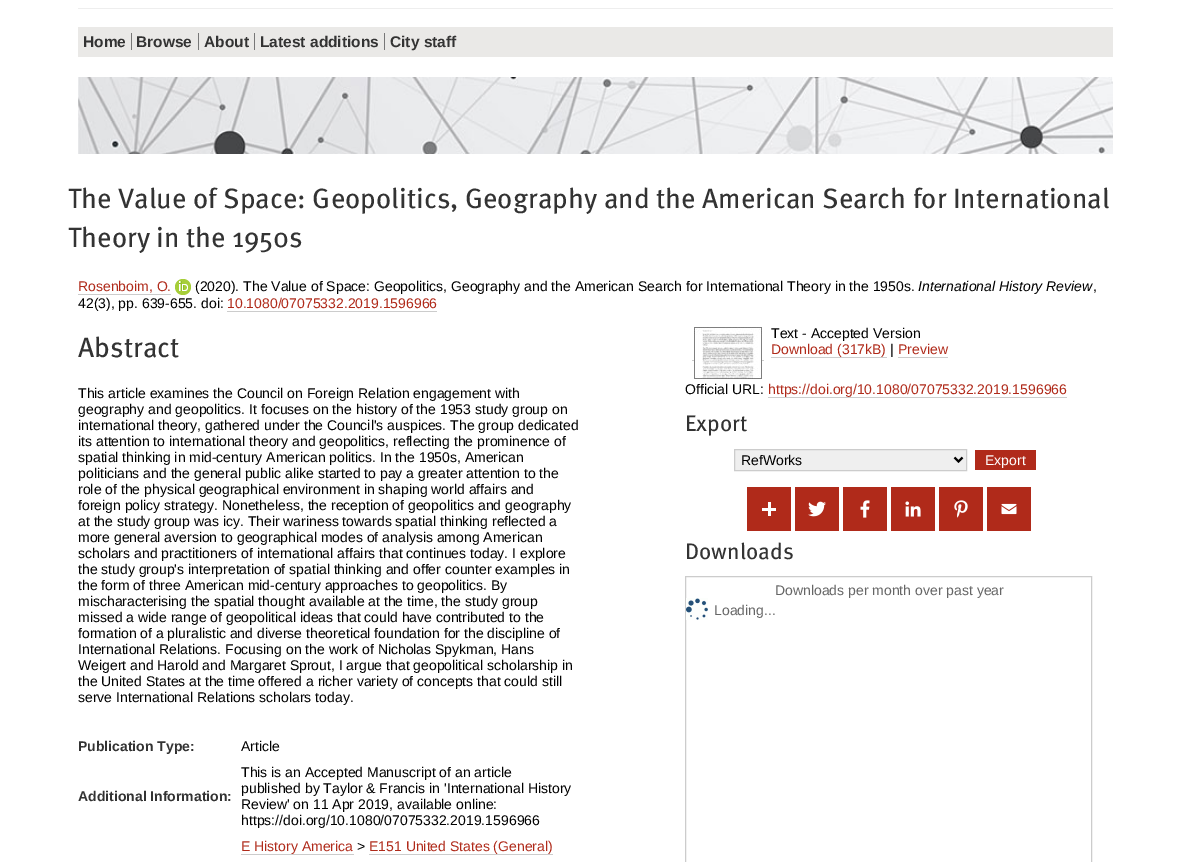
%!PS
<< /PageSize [1190 862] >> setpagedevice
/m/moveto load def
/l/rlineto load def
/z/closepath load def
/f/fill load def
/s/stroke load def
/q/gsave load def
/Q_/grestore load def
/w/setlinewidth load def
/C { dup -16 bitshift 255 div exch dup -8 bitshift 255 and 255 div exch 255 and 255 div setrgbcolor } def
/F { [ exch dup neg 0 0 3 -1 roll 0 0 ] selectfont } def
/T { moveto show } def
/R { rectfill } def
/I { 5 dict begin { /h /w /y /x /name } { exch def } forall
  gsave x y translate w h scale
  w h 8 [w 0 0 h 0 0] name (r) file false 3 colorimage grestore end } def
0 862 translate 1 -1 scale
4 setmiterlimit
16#FFFFFF C
0 0 1190 862 R
16#EEEEEE C
78 8 1035 1 R
16#EAE9E7 C
78 27 1035 30 R
/LiberationSans-Bold 15.5 F
16#333333 C
(Home) 83 47 T
16#777777 C
131 33 1 17 R
16#333333 C
(Browse) 136 47 T
16#777777 C
198 33 1 17 R
16#333333 C
(About) 204 47 T
16#777777 C
254 33 1 17 R
16#333333 C
(Latest additions) 260 47 T
16#777777 C
384 33 1 17 R
16#333333 C
(City staff) 390 47 T
(1.rgb) 78 77 1035 77 I
/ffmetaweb-Regular 28 F
(The Value of Space: Geopolitics, Geography and the American Search for International) 68 208 T
(Theory in the 1950s) 68 247 T
/LiberationSans-Regular 14 F
16#B02A1A C
(Rosenboim, O.) 78 291 T
16#CCCCCC C
78 294 93 1 R
(2.rgb) 175 279 16 16 I
16#000000 C
(\(2020\). The Value of Space: Geopolitics, Geography and the American Search for International Theory in the 1950s.) 195 291 T
/LiberationSans-Italic 14 F
(International History Review) 918 291 T
/LiberationSans-Regular 14 F
(,) 1093 291 T
(42\(3\), pp. 639-655. doi:) 78 308 T
16#B02A1A C
(10.1080/07075332.2019.1596966) 227 308 T
16#CCCCCC C
227 311 210 1 R
/ffmetaweb-Regular 28 F
16#333333 C
(Abstract) 78 357 T
/LiberationSans-Regular 14 F
16#000000 C
(This article examines the Council on Foreign Relation engagement with) 78 398 T
(geography and geopolitics. It focuses on the history of the 1953 study group on) 78 414 T
(international theory, gathered under the Council's auspices. The group dedicated) 78 430 T
(its attention to international theory and geopolitics, reflecting the prominence of) 78 446 T
(spatial thinking in mid-century American politics. In the 1950s, American) 78 462 T
(politicians and the general public alike started to pay a greater attention to the) 78 478 T
(role of the physical geographical environment in shaping world affairs and) 78 494 T
(foreign policy strategy. Nonetheless, the reception of geopolitics and geography) 78 510 T
(at the study group was icy. Their wariness towards spatial thinking reflected a) 78 526 T
(more general aversion to geographical modes of analysis among American) 78 542 T
(scholars and practitioners of international affairs that continues today. I explore) 78 558 T
(the study group's interpretation of spatial thinking and offer counter examples in) 78 574 T
(the form of three American mid-century approaches to geopolitics. By) 78 590 T
(mischaracterising the spatial thought available at the time, the study group) 78 606 T
(missed a wide range of geopolitical ideas that could have contributed to the) 78 622 T
(formation of a pluralistic and diverse theoretical foundation for the discipline of) 78 638 T
(International Relations. Focusing on the work of Nicholas Spykman, Hans) 78 654 T
(Weigert and Harold and Margaret Sprout, I argue that geopolitical scholarship in) 78 670 T
(the United States at the time offered a richer variety of concepts that could still) 78 686 T
(serve International Relations scholars today.) 78 702 T
/LiberationSans-Bold 14 F
16#333333 C
(Publication Type:) 78 751 T
/LiberationSans-Regular 14 F
16#000000 C
(Article) 241 751 T
/LiberationSans-Bold 14 F
16#333333 C
(Additional Information:) 78 801 T
/LiberationSans-Regular 14 F
16#000000 C
(This is an Accepted Manuscript of an article) 241 777 T
(published by Taylor & Francis in 'International History) 241 793 T
(Review' on 11 Apr 2019, available online:) 241 809 T
(https://doi.org/10.1080/07075332.2019.1596966) 241 825 T
16#B02A1A C
(E History America) 241 851 T
16#CCCCCC C
241 854 113 1 R
16#000000 C
(>) 357 851 T
16#B02A1A C
(E151 United States \(General\)) 369 851 T
16#CCCCCC C
369 854 184 1 R
692 360 72 1 R
(3.rgb) 694 327 68 52 I
16#000000 C
(Text - Accepted Version) 771 338 T
16#B02A1A C
(Download \(317kB\)) 771 354 T
16#CCCCCC C
771 357 116 1 R
16#000000 C
(|) 890 354 T
16#B02A1A C
(Preview) 898 354 T
16#CCCCCC C
898 357 50 1 R
16#000000 C
(Official URL:) 685 394 T
16#B02A1A C
(https://doi.org/10.1080/07075332.2019.1596966) 768 394 T
16#CCCCCC C
768 397 299 1 R
/ffmetaweb-Regular 22.5 F
16#333333 C
(Export) 685 431 T
16#EFEFEF C
734.5 449.5 m 232 0 l 0 21 l -232 0 l z q f Q_
16#CCCCCC C
s
16#000000 C
2 w
954.5 457.5 m 4 4 l 4 -4 l s
/LiberationSans-Regular 14 F
(RefWorks) 741 465 T
16#B02A1A C
975 450 61 20 R
16#FFFFFF C
(Export) 985 465 T
16#B02A1A C
747 487 44 44 R
795 487 44 44 R
843 487 44 44 R
891 487 44 44 R
939 487 44 44 R
987 487 44 44 R
16#FFFFFF C
768 502 3 14 R
(4.rgb) 808 501 18 16 I
(5.rgb) 860 500 10 18 I
(6.rgb) 905 501 16 16 I
(7.rgb) 954 500 14 18 I
(8.rgb) 1001 503 16 12 I
762 508 14 3 R
/ffmetaweb-Regular 22.5 F
16#333333 C
(Downloads) 685 559 T
16#CCCCCC C
1 w
685.5 576.5 406 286 rectstroke
/LiberationSans-Regular 14 F
16#666666 C
(Downloads per month over past year) 775 595 T
(9.rgb) 686 598 22 22 I
(Loading...) 714 615 T
showpage
